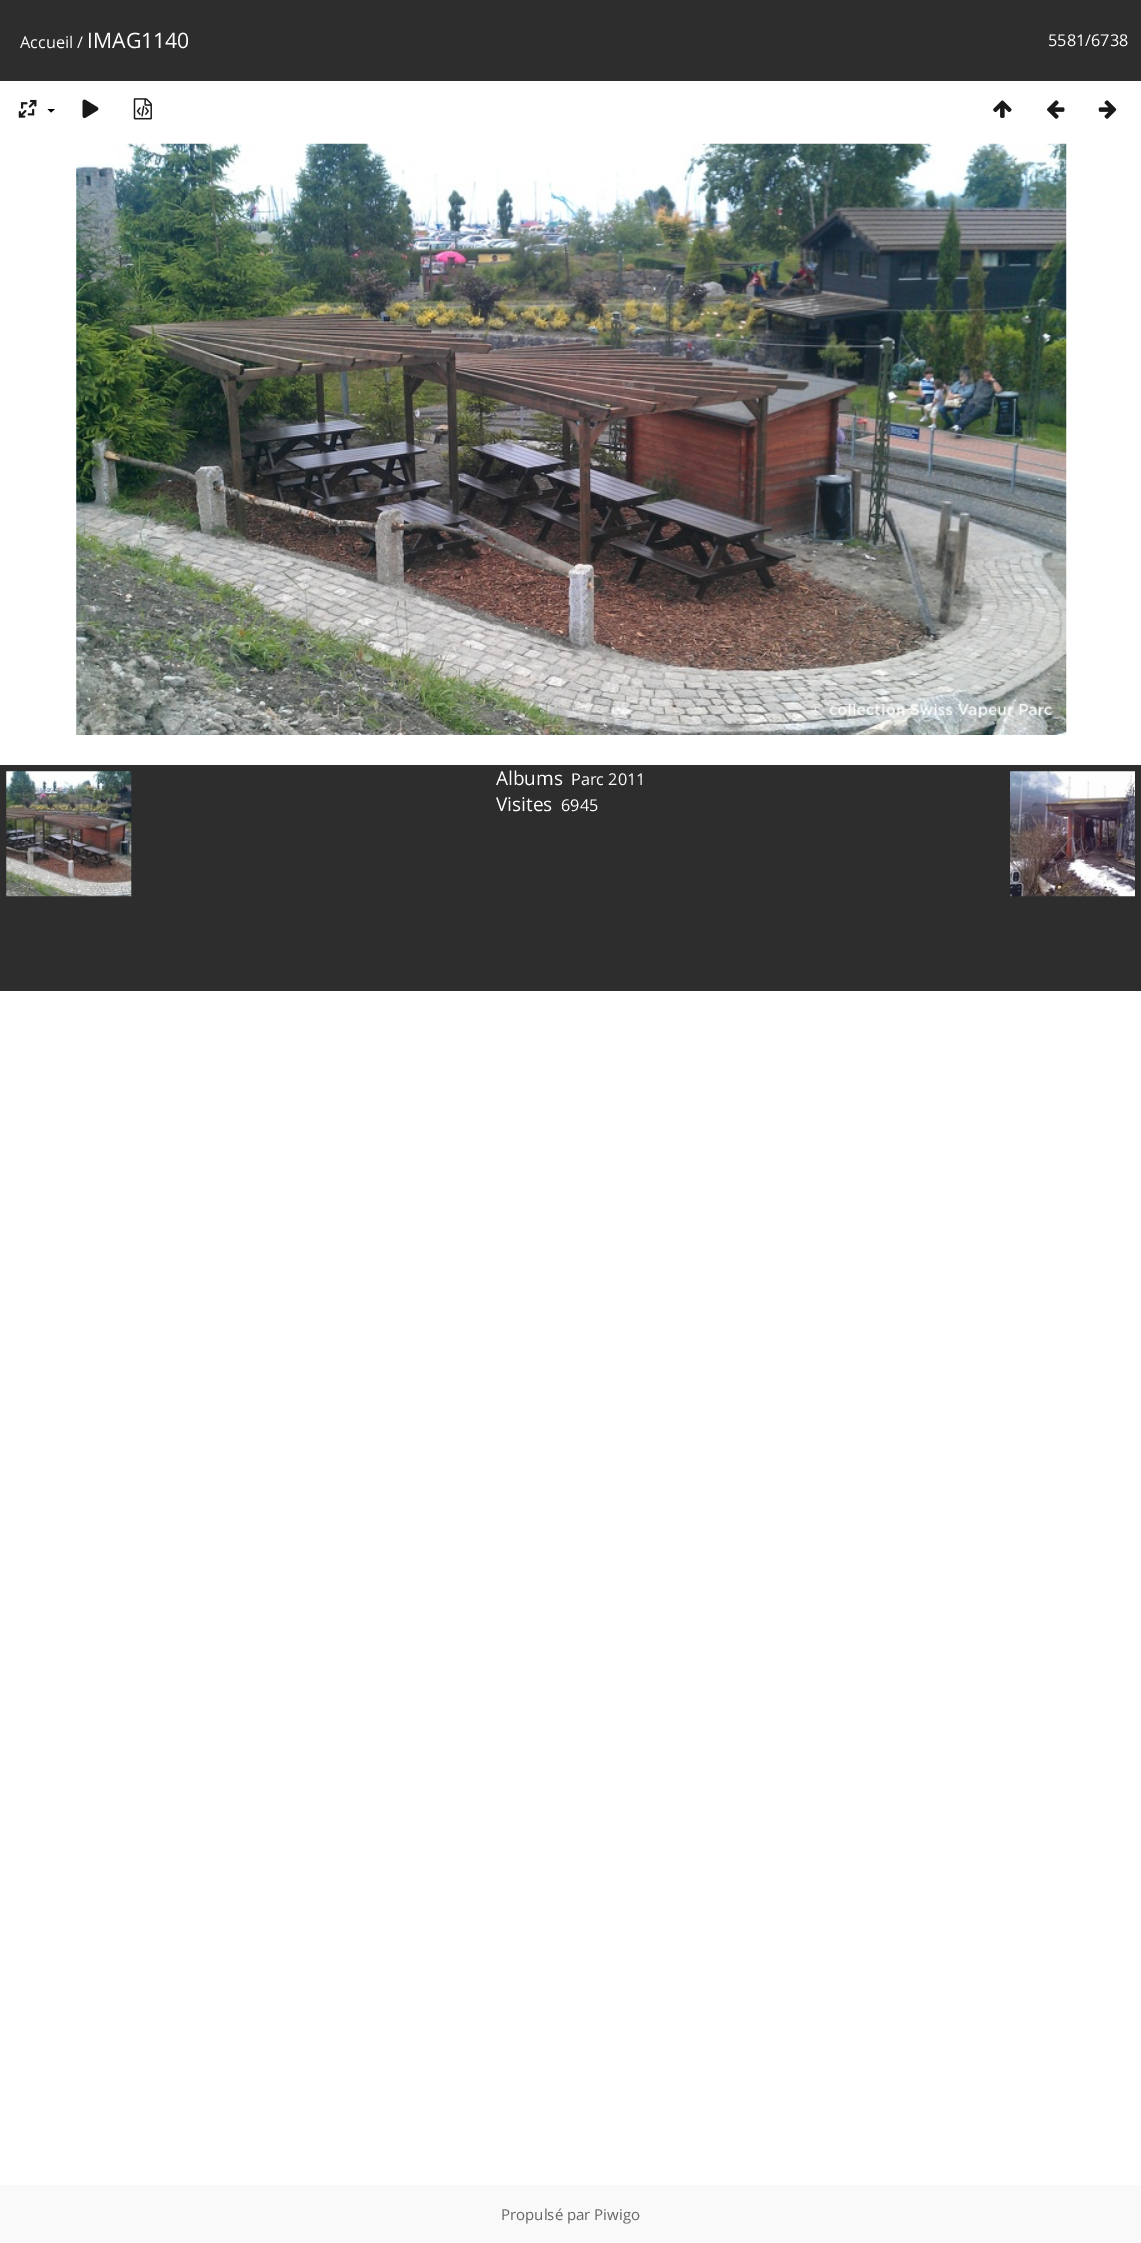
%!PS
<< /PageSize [1141 2243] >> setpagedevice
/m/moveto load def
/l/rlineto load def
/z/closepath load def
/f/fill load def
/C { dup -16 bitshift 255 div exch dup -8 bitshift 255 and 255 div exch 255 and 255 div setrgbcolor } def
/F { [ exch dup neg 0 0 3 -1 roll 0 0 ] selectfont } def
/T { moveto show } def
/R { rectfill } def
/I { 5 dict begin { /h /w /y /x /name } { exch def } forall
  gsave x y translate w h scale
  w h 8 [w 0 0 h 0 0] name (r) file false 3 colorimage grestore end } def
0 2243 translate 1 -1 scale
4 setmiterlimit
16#FFFFFF C
0 0 1141 2243 R
16#2D2D2D C
0 0 1141 81 R
/OpenSans-Regular 16.25 F
16#FFFFFF C
(Accueil /) 20 48 T
/OpenSans-Regular 21.25 F
(IMAG1140) 87 48 T
/OpenSans-Regular 16.25 F
(5581/6738) 1048 46 T
(1.rgb) 18 99 19 19 I
16#000000 C
47.5 109 m 7.5 0 l -4 3.5 l z f
(2.rgb) 82 99 17 20 I
(3.rgb) 133 98 19 22 I
(4.rgb) 993 100 19 18 I
(5.rgb) 1047 100 18 19 I
(6.rgb) 1098 100 19 19 I
(7.rgb) 76 143 991 592 I
16#2D2D2D C
0 765 1141 226 R
/OpenSans-Regular 19 F
16#FFFFFF C
(Albums) 496 785 T
/OpenSans-Regular 16.25 F
(Parc 2011) 571 785 T
/OpenSans-Regular 19 F
(Visites) 496 811 T
/OpenSans-Regular 16.25 F
(6945) 561 811 T
(8.rgb) 6 771 126 126 I
(9.rgb) 1010 771 125 126 I
16#F9F9F9 C
0 2185 1141 58 R
/OpenSans-Regular 15 F
16#666666 C
(Propulsé par Piwigo) 501 2220 T
showpage
